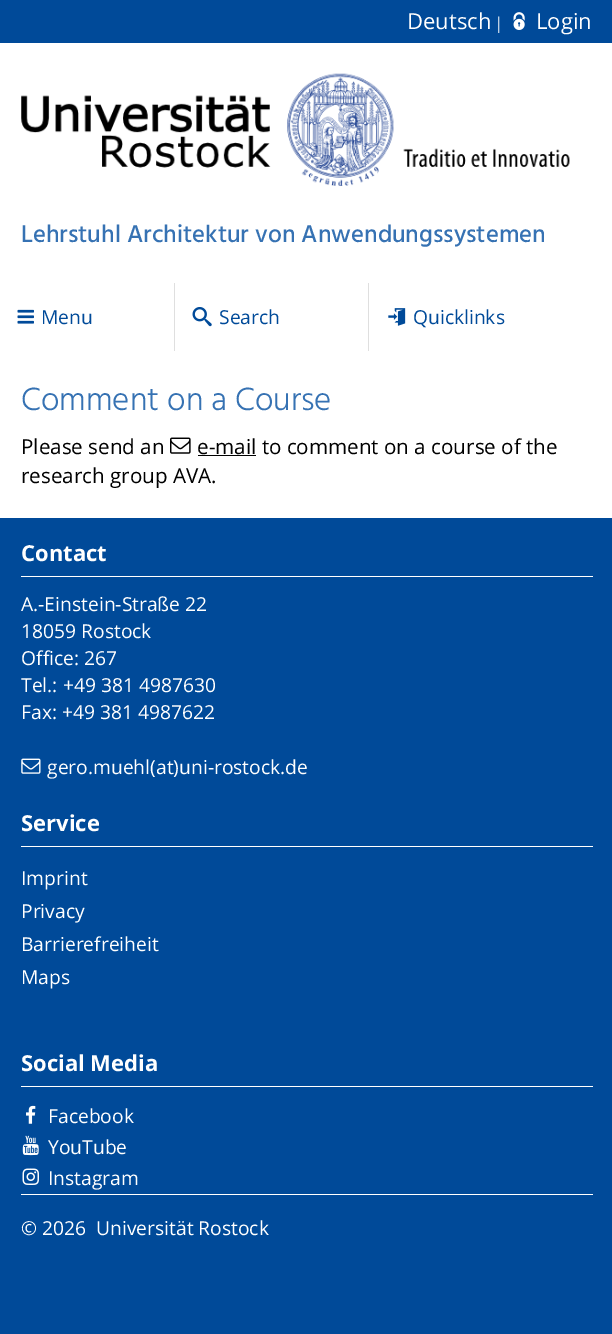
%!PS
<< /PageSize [612 1334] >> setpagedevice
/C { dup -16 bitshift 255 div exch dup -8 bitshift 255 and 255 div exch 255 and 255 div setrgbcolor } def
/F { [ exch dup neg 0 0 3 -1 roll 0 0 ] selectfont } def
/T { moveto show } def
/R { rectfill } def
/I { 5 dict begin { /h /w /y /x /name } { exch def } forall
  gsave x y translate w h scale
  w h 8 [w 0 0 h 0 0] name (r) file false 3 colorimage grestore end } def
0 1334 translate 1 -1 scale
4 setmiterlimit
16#FFFFFF C
0 0 612 1334 R
16#004A99 C
0 0 612 43 R
/OpenSans-Regular 22 F
16#FFFFFF C
(Deutsch) 407 29 T
/LiberationSerif-Regular 18 F
(|) 497 29 T
(1.rgb) 513 12 12 18 I
/OpenSans-Regular 22 F
(Login) 536 29 T
(2.rgb) 21 73 549 113 I
/Hind-Medium 24.75 F
16#3672B3 C
(Lehrstuhl Architektur von Anwendungssystemen) 21 242 T
(3.rgb) 17 309 17 15 I
/OpenSans-Regular 19.25 F
16#004A99 C
(Menu) 41 324 T
16#DFDFDF C
174 283 1 68 R
(4.rgb) 192 307 20 20 I
16#004A99 C
(Search) 219 324 T
16#DFDFDF C
368 283 1 68 R
(5.rgb) 388 308 18 18 I
16#004A99 C
(Quicklinks) 413 324 T
/Hind-Light 33 F
16#3672B3 C
(Comment on a Course) 21 410 T
/OpenSans-Regular 20.6 F
16#000000 C
(Please send an) 21 454 T
(6.rgb) 170 437 21 17 I
(e-mail to comment on a course of the) 197 454 T
198 455 58 1 R
(research group AVA.) 21 483 T
16#004A99 C
0 518 612 816 R
16#FFFFFF C
21 576 572 1 R
/OpenSans-Bold 22 F
(Contact) 21 561 T
/OpenSans-Regular 19.25 F
(A.-Einstein-Straße 22) 21 611 T
(18059 Rostock) 21 638 T
(Office: 267) 21 665 T
(Tel.: +49 381 4987630) 21 692 T
(Fax: +49 381 4987622) 21 719 T
(7.rgb) 21 758 20 16 I
(gero.muehl\(at\)uni-rostock.de) 47 774 T
21 846 572 1 R
/OpenSans-Bold 22 F
(Service) 21 831 T
/OpenSans-Regular 19.25 F
(Imprint) 21 885 T
(Privacy) 21 918 T
(Barrierefreiheit) 21 951 T
(Maps) 21 984 T
21 1086 572 1 R
/OpenSans-Bold 22 F
(Social Media) 21 1071 T
(8.rgb) 26 1105 10 19 I
/OpenSans-Regular 19.25 F
(Facebook) 48 1123 T
(9.rgb) 22 1135 17 21 I
(YouTube) 48 1154 T
(10.rgb) 22 1168 17 17 I
(Instagram) 48 1185 T
21 1194 572 1 R
(© 2026  Universität Rostock) 21 1235 T
showpage
